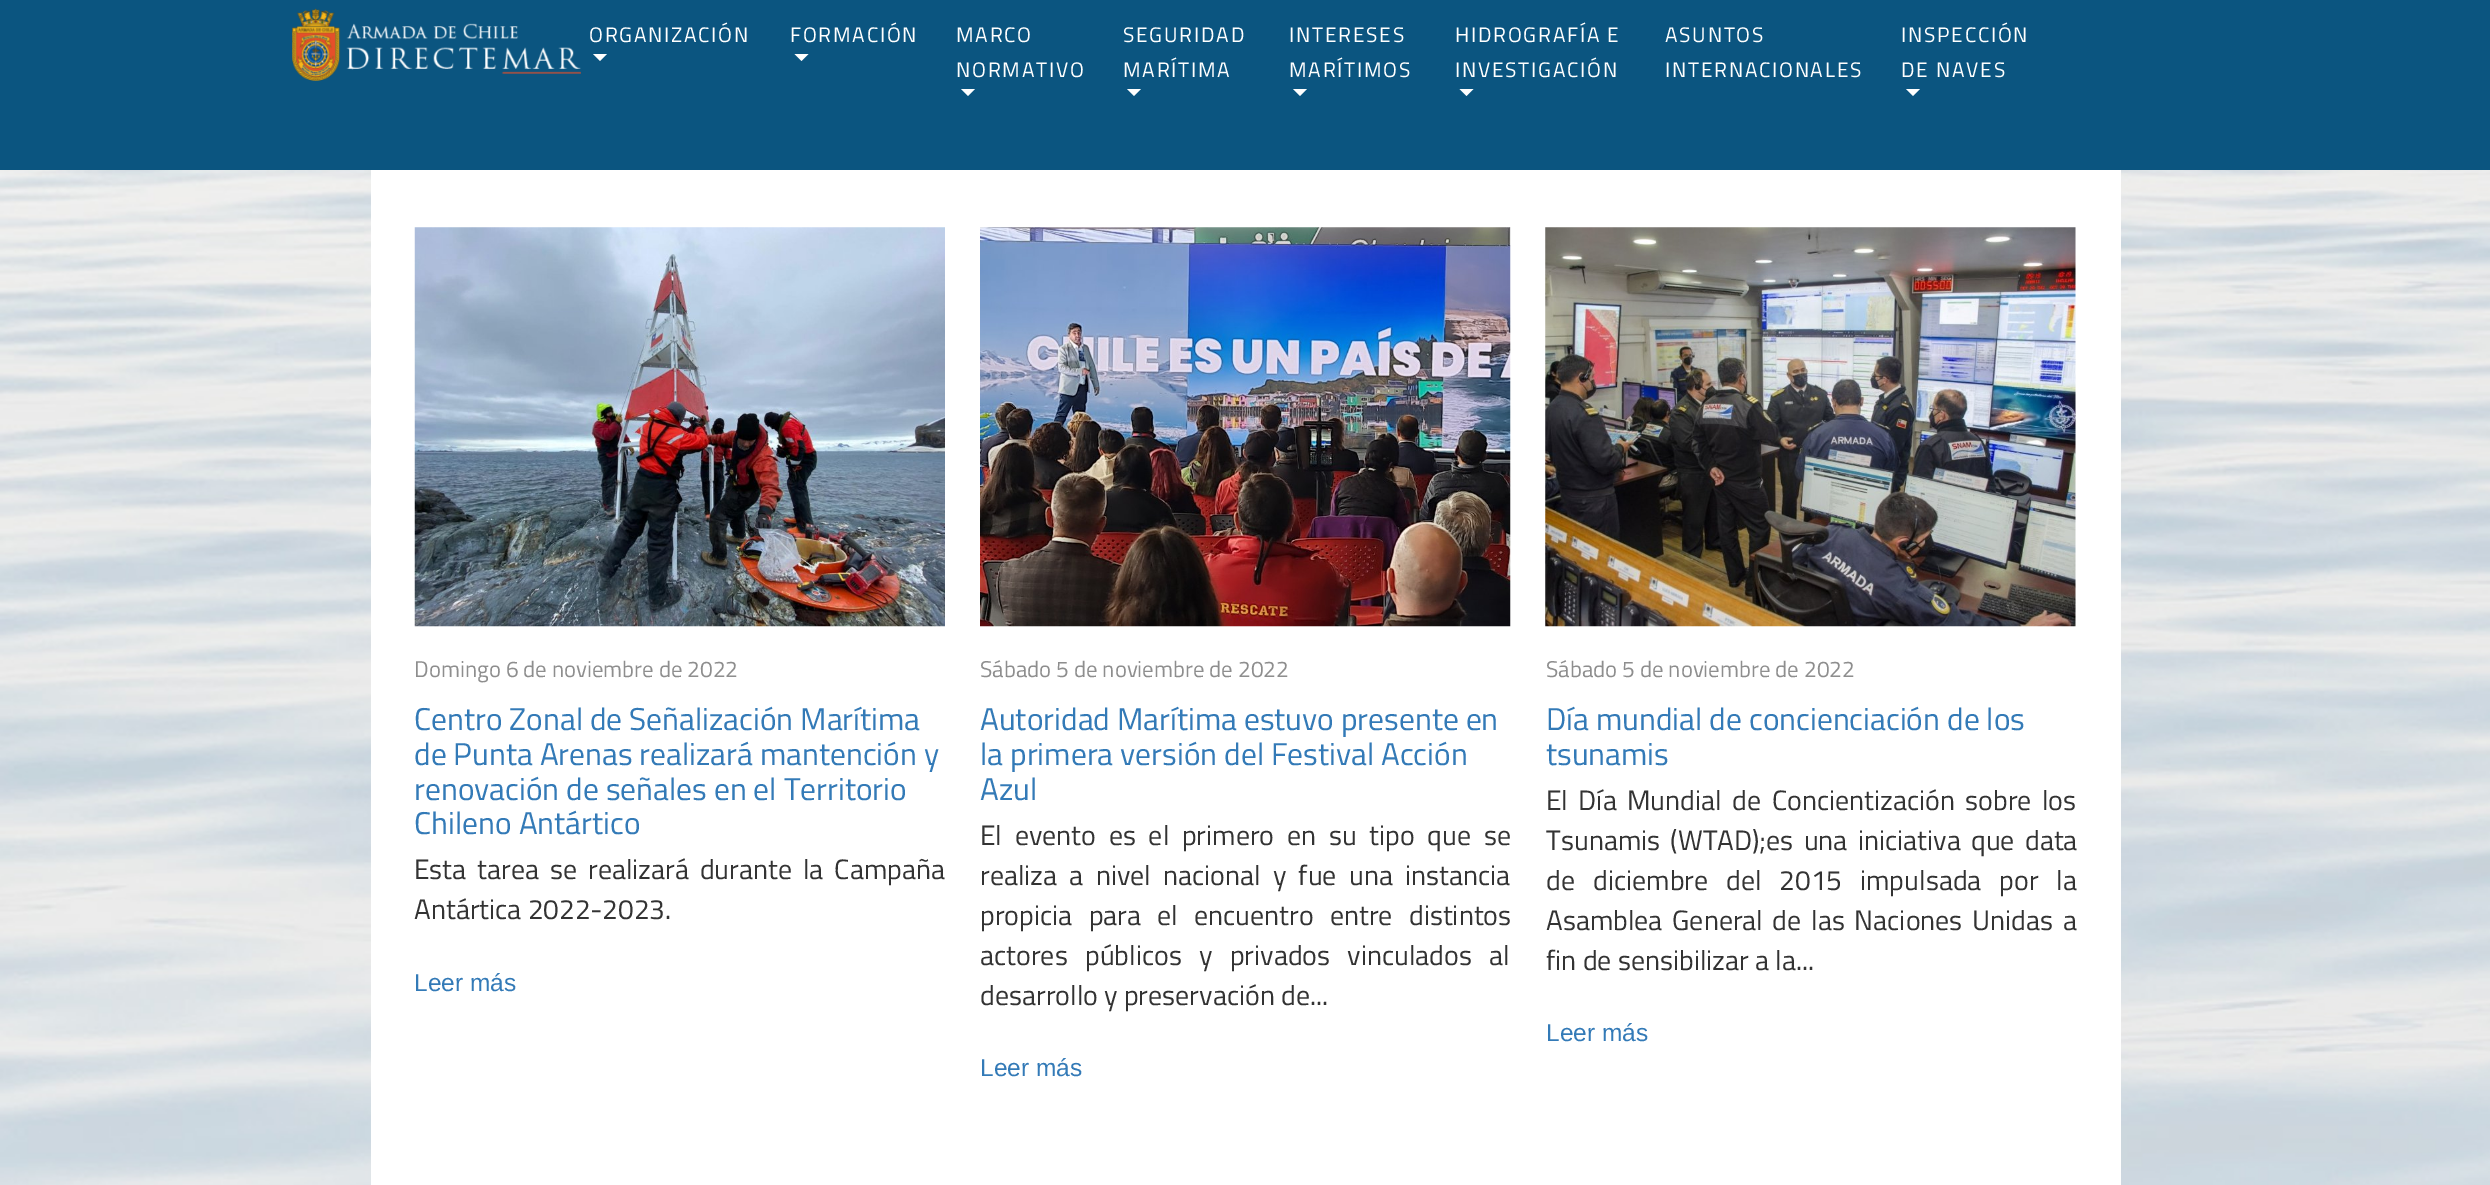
%!PS
<< /PageSize [2490 1185] >> setpagedevice
/m/moveto load def
/l/rlineto load def
/z/closepath load def
/f/fill load def
/C { dup -16 bitshift 255 div exch dup -8 bitshift 255 and 255 div exch 255 and 255 div setrgbcolor } def
/F { [ exch dup neg 0 0 3 -1 roll 0 0 ] selectfont } def
/T { moveto show } def
/R { rectfill } def
/I { 5 dict begin { /h /w /y /x /name } { exch def } forall
  gsave x y translate w h scale
  w h 8 [w 0 0 h 0 0] name (r) file false 3 colorimage grestore end } def
0 1185 translate 1 -1 scale
4 setmiterlimit
16#FFFFFF C
0 0 2490 1185 R
(1.rgb) 0 170 2490 1015 I
16#0B5580 C
0 0 2490 170 R
(2.rgb) 292 8 289 73 I
/TitilliumWeb-Regular 21 F
16#FFFFFF C
589 42 m 1.75 0 (ORGANIZACIÓN) ashow
593 54 m 14 0 l -7 7 l z f
790 42 m 1.75 0 (FORMACIÓN) ashow
794.5 54 m 14 0 l -7 7 l z f
956 42 m 1.75 0 (MARCO) ashow
956 77 m 1.75 0 (NORMATIVO) ashow
961 89 m 14 0 l -7 7 l z f
1123 42 m 1.75 0 (SEGURIDAD) ashow
1123 77 m 1.75 0 (MARÍTIMA) ashow
1127 89 m 14 0 l -7 7 l z f
1289 42 m 1.75 0 (INTERESES) ashow
1289 77 m 1.75 0 (MARÍTIMOS) ashow
1293 89 m 14 0 l -7 7 l z f
1455 42 m 1.75 0 (HIDROGRAFÍA E) ashow
1455 77 m 1.75 0 (INVESTIGACIÓN) ashow
1459.5 89 m 14 0 l -7 7 l z f
1665 42 m 1.75 0 (ASUNTOS) ashow
1665 77 m 1.75 0 (INTERNACIONALES) ashow
1901 42 m 1.75 0 (INSPECCIÓN) ashow
1901 77 m 1.75 0 (DE NAVES) ashow
1906 89 m 14 0 l -7 7 l z f
371 170 1750 1015 R
(3.rgb) 414 227 531 400 I
/TitilliumWeb-Regular 22.75 F
16#8E8E8E C
(Domingo 6 de noviembre de 2022) 414 677 T
/TitilliumWeb-Regular 31.5 F
16#337AB7 C
(Centro Zonal de Señalización Marítima) 414 730 T
(de Punta Arenas realizará mantención y) 414 765 T
(renovación de señales en el Territorio) 414 800 T
(Chileno Antártico) 414 834 T
/TitilliumWeb-Regular 28 F
16#333333 C
414 879 m 4.75 0 32 (Esta tarea se realizará durante la Campaña) widthshow
(Antártica 2022-2023.) 414 919 T
/LiberationSans-Regular 24.5 F
16#337AB7 C
(Leer más) 414 991 T
(4.rgb) 980 227 531 400 I
/TitilliumWeb-Regular 22.75 F
16#8E8E8E C
(Sábado 5 de noviembre de 2022) 980 677 T
/TitilliumWeb-Regular 31.5 F
16#337AB7 C
(Autoridad Marítima estuvo presente en) 980 730 T
(la primera versión del Festival Acción) 980 765 T
(Azul) 980 800 T
/TitilliumWeb-Regular 28 F
16#333333 C
980 845 m 6.5 0 32 (El evento es el primero en su tipo que se) widthshow
980 885 m 6 0 32 (realiza a nivel nacional y fue una instancia) widthshow
980 925 m 10 0 32 (propicia para el encuentro entre distintos) widthshow
980 965 m 11 0 32 (actores públicos y privados vinculados al) widthshow
(desarrollo y preservación de...) 980 1005 T
/LiberationSans-Regular 24.5 F
16#337AB7 C
(Leer más) 980 1076 T
(5.rgb) 1545 227 531 400 I
/TitilliumWeb-Regular 22.75 F
16#8E8E8E C
(Sábado 5 de noviembre de 2022) 1546 677 T
/TitilliumWeb-Regular 31.5 F
16#337AB7 C
(Día mundial de concienciación de los) 1546 730 T
(tsunamis) 1546 765 T
/TitilliumWeb-Regular 28 F
16#333333 C
1546 810 m 4.25 0 32 (El Día Mundial de Concientización sobre los) widthshow
1546 850 m 4 0 32 (Tsunamis \(WTAD\);es una iniciativa que data) widthshow
1546 890 m 11.75 0 32 (de diciembre del 2015 impulsada por la) widthshow
1546 930 m 3.5 0 32 (Asamblea General de las Naciones Unidas a) widthshow
(fin de sensibilizar a la...) 1546 970 T
/LiberationSans-Regular 24.5 F
16#337AB7 C
(Leer más) 1546 1041 T
showpage
